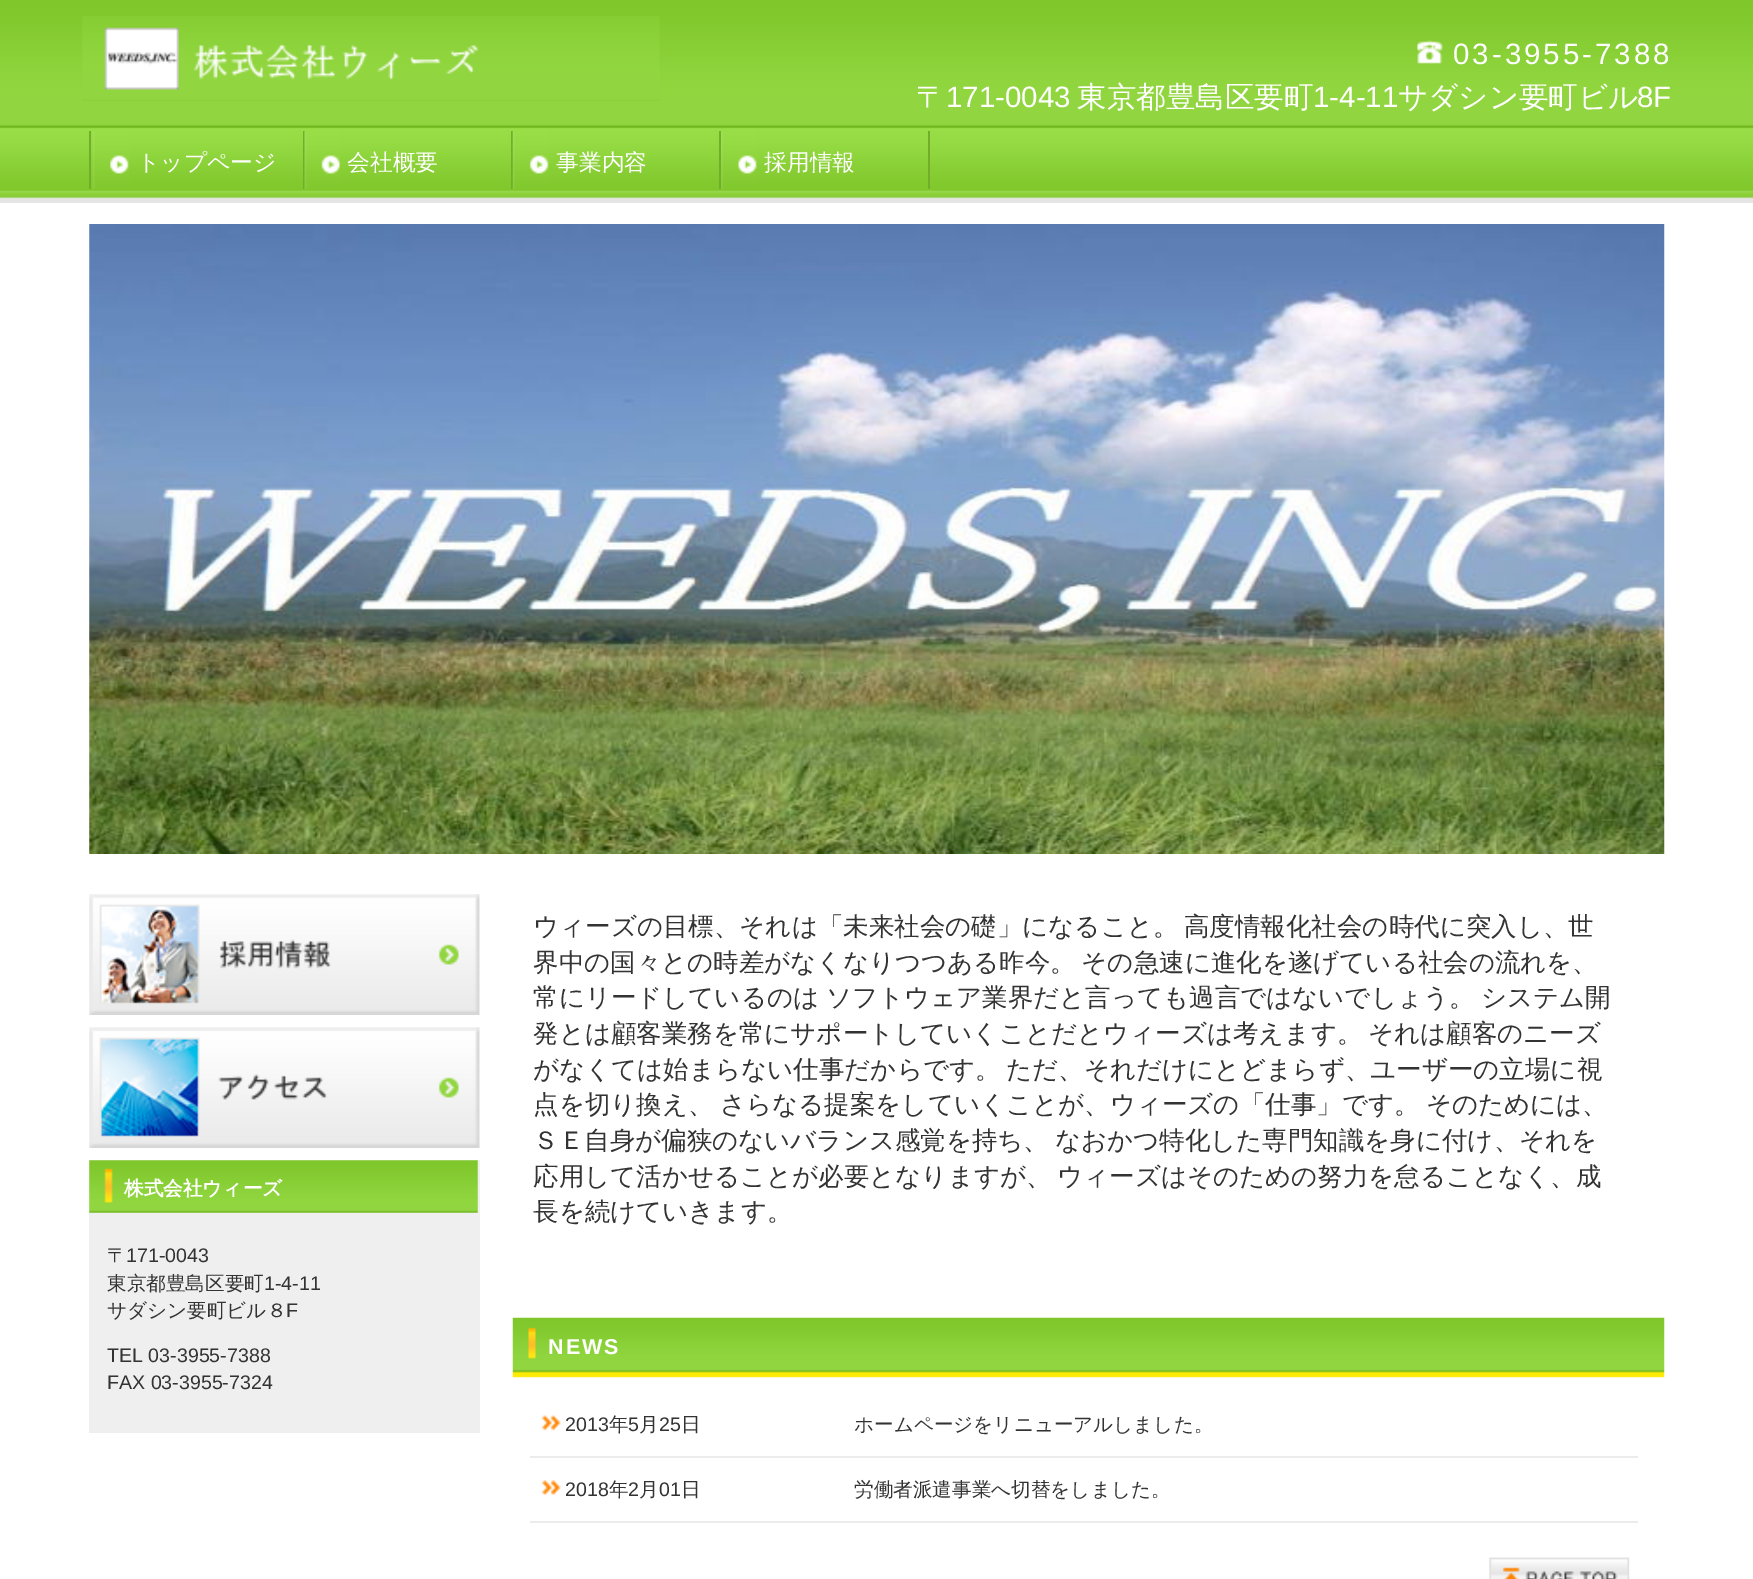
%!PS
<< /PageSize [1753 1579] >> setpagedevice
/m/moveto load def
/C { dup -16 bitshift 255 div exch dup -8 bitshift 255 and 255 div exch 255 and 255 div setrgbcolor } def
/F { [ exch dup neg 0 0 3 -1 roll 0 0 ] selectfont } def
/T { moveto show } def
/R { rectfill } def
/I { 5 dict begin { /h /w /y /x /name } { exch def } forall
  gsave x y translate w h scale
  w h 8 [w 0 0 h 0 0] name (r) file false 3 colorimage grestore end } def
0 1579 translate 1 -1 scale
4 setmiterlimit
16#FFFFFF C
0 0 1753 1579 R
(1.rgb) 0 0 1753 203 I
(2.rgb) 82 16 578 85 I
(3.rgb) 1416 40 27 24 I
/LiberationSans-Regular 29.5 F
1453 64 m 3 0 (03-3955-7388) ashow
/WenQuanYiZenHei-Medium 29.5 F
(〒) 916 107 T
/LiberationSans-Regular 29.5 F
(171-0043) 946 107 T
/WenQuanYiZenHei-Medium 29.5 F
(東京都豊島区要町) 1077 107 T
/LiberationSans-Regular 29.5 F
(1-4-11) 1313 107 T
/WenQuanYiZenHei-Medium 29.5 F
(サダシン要町ビル) 1398 107 T
/LiberationSans-Regular 29.5 F
(8F) 1637 107 T
16#71AE2A C
89 131 2 58 R
(4.rgb) 92 131 37 58 I
303 131 2 58 R
/WenQuanYiZenHei-Medium 22.75 F
16#FFFFFF C
(トップページ) 137 170 T
(5.rgb) 304 131 36 58 I
16#71AE2A C
511 131 2 58 R
16#FFFFFF C
(会社概要) 347 170 T
(6.rgb) 512 131 37 58 I
16#71AE2A C
719 131 2 58 R
16#FFFFFF C
(事業内容) 556 170 T
(7.rgb) 721 131 36 58 I
16#71AE2A C
928 131 2 58 R
16#FFFFFF C
(採用情報) 764 170 T
(8.rgb) 89 894 391 121 I
(9.rgb) 89 1027 391 121 I
16#EFEFEF C
89 1160 391 273 R
(10.rgb) 89 1160 389 53 I
/WenQuanYiZenHei-Bold 19.6 F
16#FFFFFF C
(株式会社ウィーズ) 124 1195 T
/WenQuanYiZenHei-Medium 19.6 F
16#333333 C
(〒) 107 1262 T
/LiberationSans-Regular 19.6 F
(171-0043) 126 1262 T
/WenQuanYiZenHei-Medium 19.6 F
(東京都豊島区要町) 107 1290 T
/LiberationSans-Regular 19.6 F
(1-4-11) 264 1290 T
/WenQuanYiZenHei-Medium 19.6 F
(サダシン要町ビル８) 107 1317 T
/LiberationSans-Regular 19.6 F
(F) 286 1317 T
(TEL 03-3955-7388) 107 1362 T
(FAX 03-3955-7324) 107 1389 T
(11.rgb) 89 224 1576 630 I
/WenQuanYiZenHei-Medium 25.5 F
533 935 m -2 0 32 (ウィーズの目標、それは「未来社会の礎」になること。 高度情報化社会の時代に突入し、世) widthshow
533 971 m -2 0 32 (界中の国々との時差がなくなりつつある昨今。 その急速に進化を遂げている社会の流れを、) widthshow
533 1006 m -1 0 32 (常にリードしているのは ソフトウェア業界だと言っても過言ではないでしょう。 システム開) widthshow
533 1042 m -2 0 32 (発とは顧客業務を常にサポートしていくことだとウィーズは考えます。 それは顧客のニーズ) widthshow
533 1078 m -2 0 32 (がなくては始まらない仕事だからです。 ただ、それだけにとどまらず、ユーザーの立場に視) widthshow
533 1113 m -1 0 32 (点を切り換え、 さらなる提案をしていくことが、ウィーズの「仕事」です。 そのためには、) widthshow
533 1149 m -2 0 32 (ＳＥ自身が偏狭のないバランス感覚を持ち、 なおかつ特化した専門知識を身に付け、それを) widthshow
533 1185 m -2 0 32 (応用して活かせることが必要となりますが、 ウィーズはそのための努力を怠ることなく、成) widthshow
(長を続けていきます。) 533 1220 T
(12.rgb) 512 1317 1153 61 I
/LiberationSans-Bold 21.5 F
16#FFFFFF C
548 1354 m 2 0 (NEWS) ashow
(13.rgb) 542 1415 19 16 I
/LiberationSans-Regular 19.6 F
16#333333 C
(2013) 565 1431 T
/WenQuanYiZenHei-Medium 19.6 F
(年) 609 1431 T
/LiberationSans-Regular 19.6 F
(5) 628 1431 T
/WenQuanYiZenHei-Medium 19.6 F
(月) 639 1431 T
/LiberationSans-Regular 19.6 F
(25) 659 1431 T
/WenQuanYiZenHei-Medium 19.6 F
(日) 681 1431 T
16#ECECEC C
530 1456 1108 2 R
16#333333 C
(ホームページをリニューアルしました。) 854 1431 T
(14.rgb) 542 1480 19 15 I
/LiberationSans-Regular 19.6 F
(2018) 565 1496 T
/WenQuanYiZenHei-Medium 19.6 F
(年) 609 1496 T
/LiberationSans-Regular 19.6 F
(2) 628 1496 T
/WenQuanYiZenHei-Medium 19.6 F
(月) 639 1496 T
/LiberationSans-Regular 19.6 F
(01) 659 1496 T
/WenQuanYiZenHei-Medium 19.6 F
(日) 681 1496 T
16#ECECEC C
530 1521 1108 2 R
16#333333 C
(労働者派遣事業へ切替をしました。) 854 1496 T
(15.rgb) 1489 1557 141 22 I
showpage
